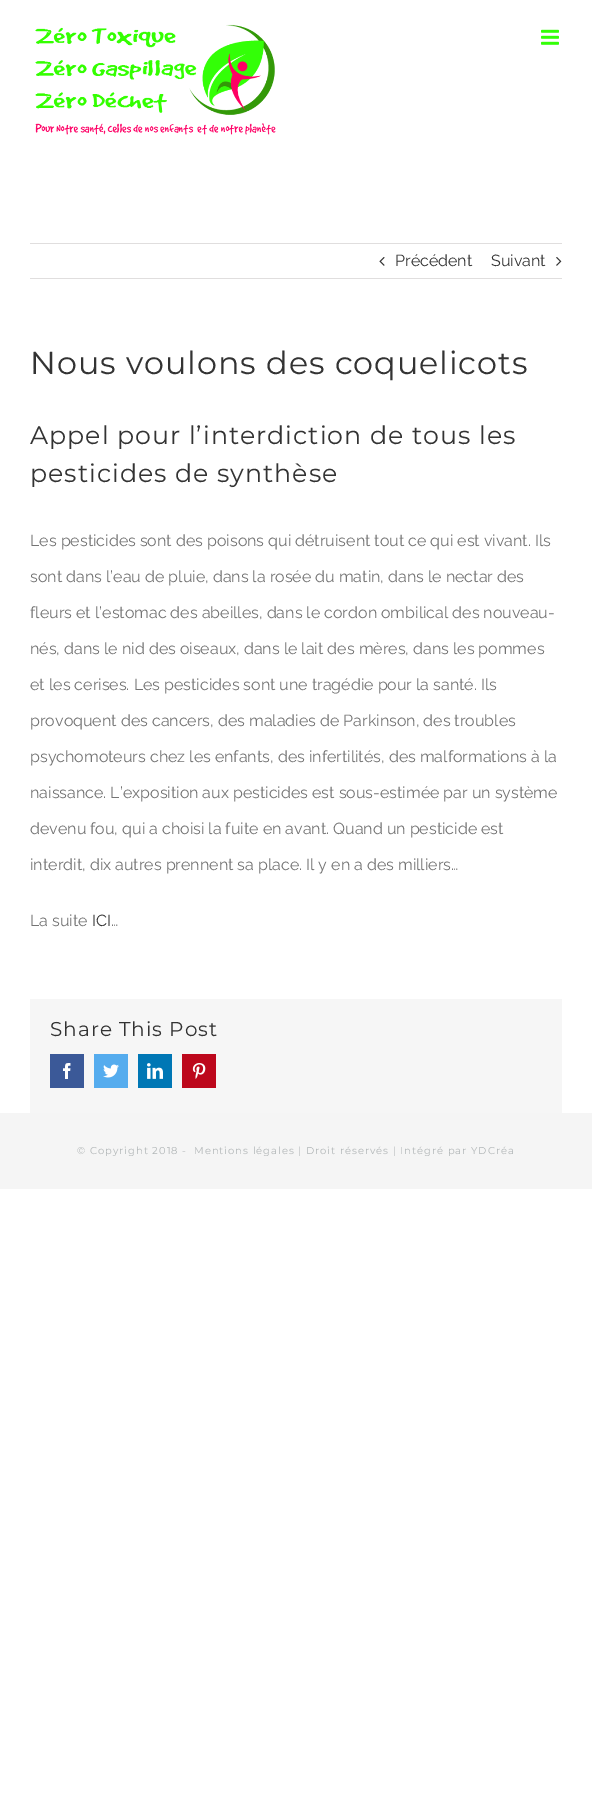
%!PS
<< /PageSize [592 1819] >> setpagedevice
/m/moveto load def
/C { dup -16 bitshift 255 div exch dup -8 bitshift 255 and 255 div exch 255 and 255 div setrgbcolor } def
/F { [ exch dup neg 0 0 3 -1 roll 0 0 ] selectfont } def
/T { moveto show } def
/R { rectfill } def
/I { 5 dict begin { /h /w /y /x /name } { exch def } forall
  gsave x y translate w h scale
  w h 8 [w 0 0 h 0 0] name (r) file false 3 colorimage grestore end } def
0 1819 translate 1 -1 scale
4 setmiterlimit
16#FFFFFF C
0 0 592 1819 R
(1.rgb) 35 24 241 111 I
(2.rgb) 541 29 18 16 I
16#E0DEDE C
30 243 532 1 R
30 278 532 1 R
(3.rgb) 379 257 6 9 I
/Raleway-Regular 16 F
16#333333 C
(Précédent) 395 266 T
(Suivant) 491 266 T
(4.rgb) 556 257 6 9 I
/Montserrat-Regular 31.75 F
30 374 m 1 0 (Nous voulons des coquelicots) ashow
/Montserrat-Regular 25.25 F
30 444 m 1 0 (Appel pour l’interdiction de tous les) ashow
30 482 m 1 0 (pesticides de synthèse) ashow
/Raleway-Regular 16 F
16#747474 C
(Les pesticides sont des poisons qui détruisent tout ce qui est vivant. Ils) 30 546 T
(sont dans l’eau de pluie, dans la rosée du matin, dans le nectar des) 30 582 T
(fleurs et l’estomac des abeilles, dans le cordon ombilical des nouveau-) 30 618 T
(nés, dans le nid des oiseaux, dans le lait des mères, dans les pommes) 30 654 T
(et les cerises. Les pesticides sont une tragédie pour la santé. Ils) 30 690 T
(provoquent des cancers, des maladies de Parkinson, des troubles) 30 726 T
(psychomoteurs chez les enfants, des infertilités, des malformations à la) 30 762 T
(naissance. L’exposition aux pesticides est sous-estimée par un système) 30 798 T
(devenu fou, qui a choisi la fuite en avant. Quand un pesticide est) 30 834 T
(interdit, dix autres prennent sa place. Il y en a des milliers…) 30 870 T
(La suite) 30 926 T
16#333333 C
(ICI) 92 926 T
16#747474 C
(…) 111 926 T
16#F6F6F6 C
30 999 532 114 R
/Montserrat-Regular 20 F
16#333333 C
50 1036 m 1 0 (Share This Post) ashow
16#3B5998 C
50 1054 34 34 R
(5.rgb) 63 1063 8 16 I
16#55ACEE C
94 1054 34 34 R
(6.rgb) 103 1064 16 14 I
16#0077B5 C
138 1054 34 34 R
(7.rgb) 147 1063 16 16 I
16#BD081C C
182 1054 34 34 R
(8.rgb) 192 1063 14 16 I
16#F5F5F5 C
0 1113 592 76 R
/Montserrat-Regular 10 F
16#B2B7B8 C
77 1154 m 1 0 (© Copyright 2018 -) ashow
194 1154 m 1 0 (Mentions légales | Droit réservés | Intégré par YDCréa) ashow
showpage
